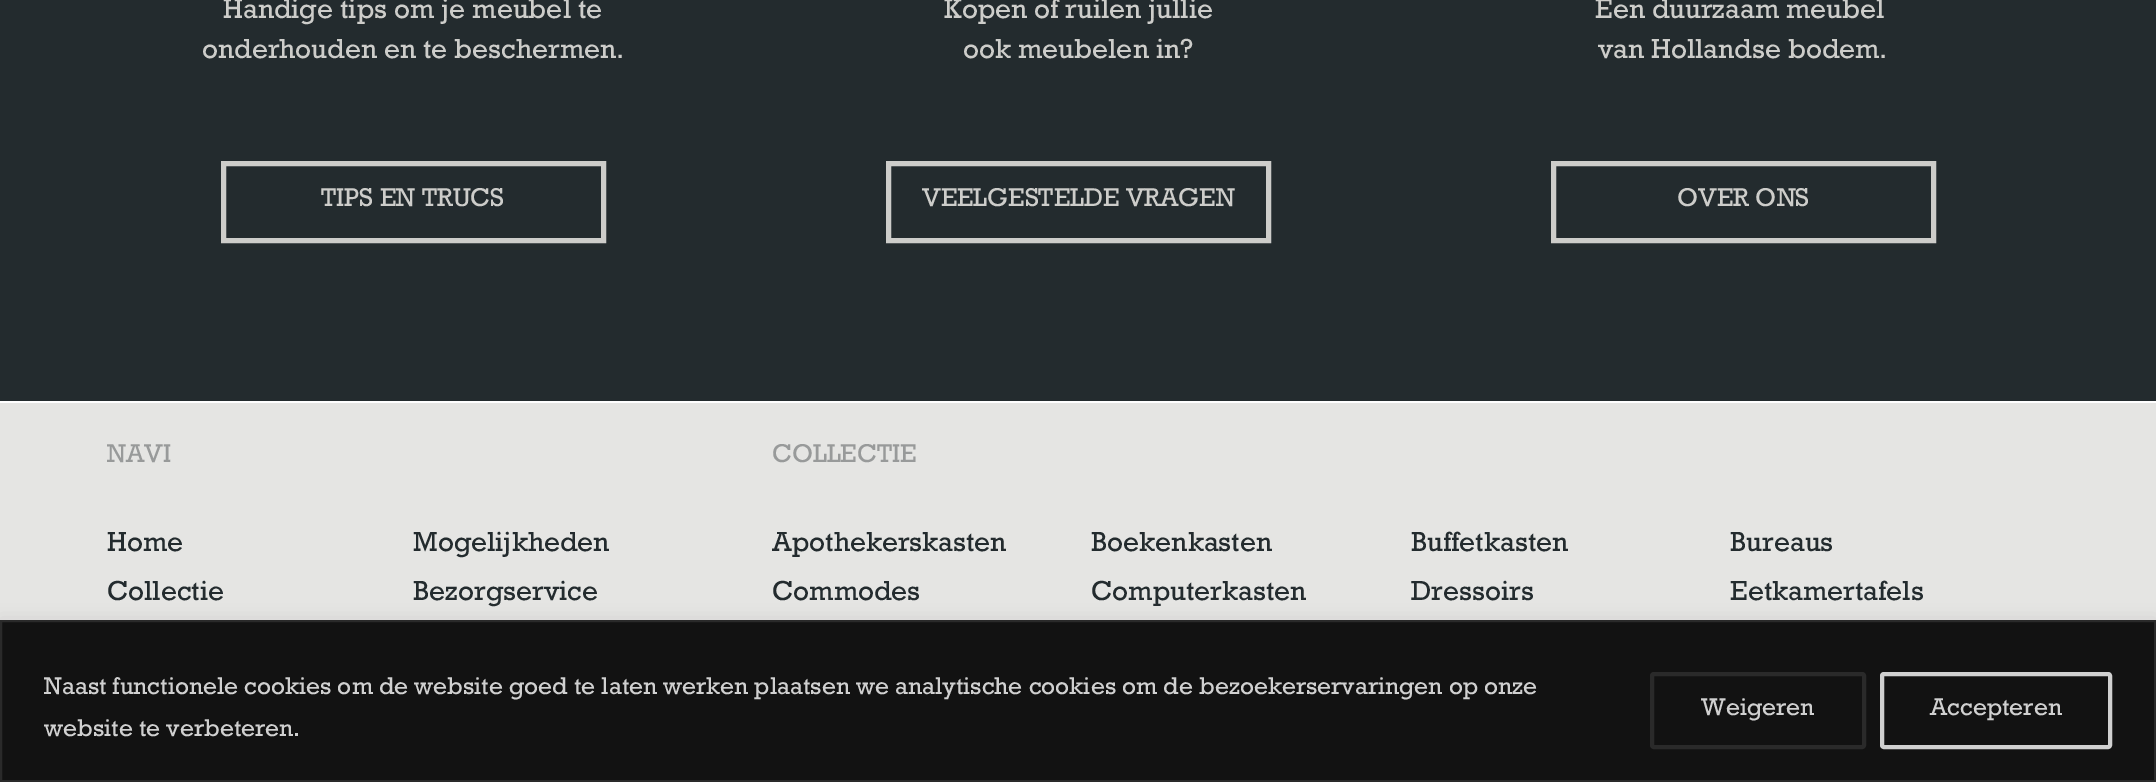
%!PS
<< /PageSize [2156 782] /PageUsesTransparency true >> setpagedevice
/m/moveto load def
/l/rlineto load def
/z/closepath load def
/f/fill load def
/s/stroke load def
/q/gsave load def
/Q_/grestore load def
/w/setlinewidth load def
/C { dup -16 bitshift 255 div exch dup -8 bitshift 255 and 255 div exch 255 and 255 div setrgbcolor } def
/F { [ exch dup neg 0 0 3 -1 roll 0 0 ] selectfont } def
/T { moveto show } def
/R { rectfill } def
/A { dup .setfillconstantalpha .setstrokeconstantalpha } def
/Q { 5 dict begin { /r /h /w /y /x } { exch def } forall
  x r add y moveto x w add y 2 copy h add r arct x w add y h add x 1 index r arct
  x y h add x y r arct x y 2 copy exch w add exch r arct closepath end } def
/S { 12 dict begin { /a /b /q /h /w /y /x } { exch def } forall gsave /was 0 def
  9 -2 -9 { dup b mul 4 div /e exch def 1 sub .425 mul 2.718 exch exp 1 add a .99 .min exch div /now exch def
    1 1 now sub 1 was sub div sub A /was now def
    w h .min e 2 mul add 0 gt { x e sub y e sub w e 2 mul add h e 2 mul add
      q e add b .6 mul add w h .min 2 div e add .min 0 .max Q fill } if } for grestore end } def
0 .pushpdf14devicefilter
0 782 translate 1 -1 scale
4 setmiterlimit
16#232B2E C
0 0 2156 782 R
/Rockwell-Regular 28 F
16#CDCDCA C
(Handige tips om je meubel te) 223 18 T
(onderhouden en te beschermen.) 202 58 T
5 w
223.5 163.5 380 77 rectstroke
/Rockwell-Regular 26.25 F
(TIPS EN TRUCS) 321 206 T
/Rockwell-Regular 28 F
(Kopen of ruilen jullie) 944 18 T
(ook meubelen in?) 963 58 T
888.5 163.5 380 77 rectstroke
/Rockwell-Regular 26.25 F
(VEELGESTELDE VRAGEN) 922 206 T
/Rockwell-Regular 28 F
(Een duurzaam meubel) 1595 18 T
(van Hollandse bodem.) 1598 58 T
1553.5 163.5 380 77 rectstroke
/Rockwell-Regular 26.25 F
(OVER ONS) 1677 206 T
16#E5E5E3 C
0 403 2156 217 R
16#FFFFFF C
0 401 2156 2 R
16#989A9A C
(NAVI) 107 462 T
/Rockwell-Regular 28 F
16#232B2E C
(Home) 107 551 T
(Mogelijkheden) 413 551 T
(Collectie) 107 600 T
(Bezorgservice) 413 600 T
/Rockwell-Regular 26.25 F
16#989A9A C
(COLLECTIE) 772 462 T
q
772 527 1277 243 rectclip
/Rockwell-Regular 28 F
16#232B2E C
(Apothekerskasten) 772 551 T
Q_
/Rockwell-Regular 28 F
16#232B2E C
(Boekenkasten) 1091 551 T
(Buffetkasten) 1411 551 T
(Bureaus) 1730 551 T
(Commodes) 772 600 T
(Computerkasten) 1091 600 T
(Dressoirs) 1411 600 T
(Eetkamertafels) 1730 600 T
16#ACABAB C
0 618 2156 163 0 9 .3 S
16#121212 C
1 621 m 2154 0 l 0 160 l -2154 0 l z q f Q_
16#2A2A2A C
2 w
s
/Rockwell-Regular 24.5 F
16#D0D0D0 C
(Naast functionele cookies om de website goed te laten werken plaatsen we analytische cookies om de bezoekerservaringen op onze) 44 694 T
(website te verbeteren.) 44 736 T
16#2A2A2A C
4 w
1652 674 212 73 2 Q s
16#D0D0D0 C
(Weigeren) 1701 715 T
1882 674 228 73 2 Q s
(Accepteren) 1930 715 T
.poppdf14devicefilter showpage
